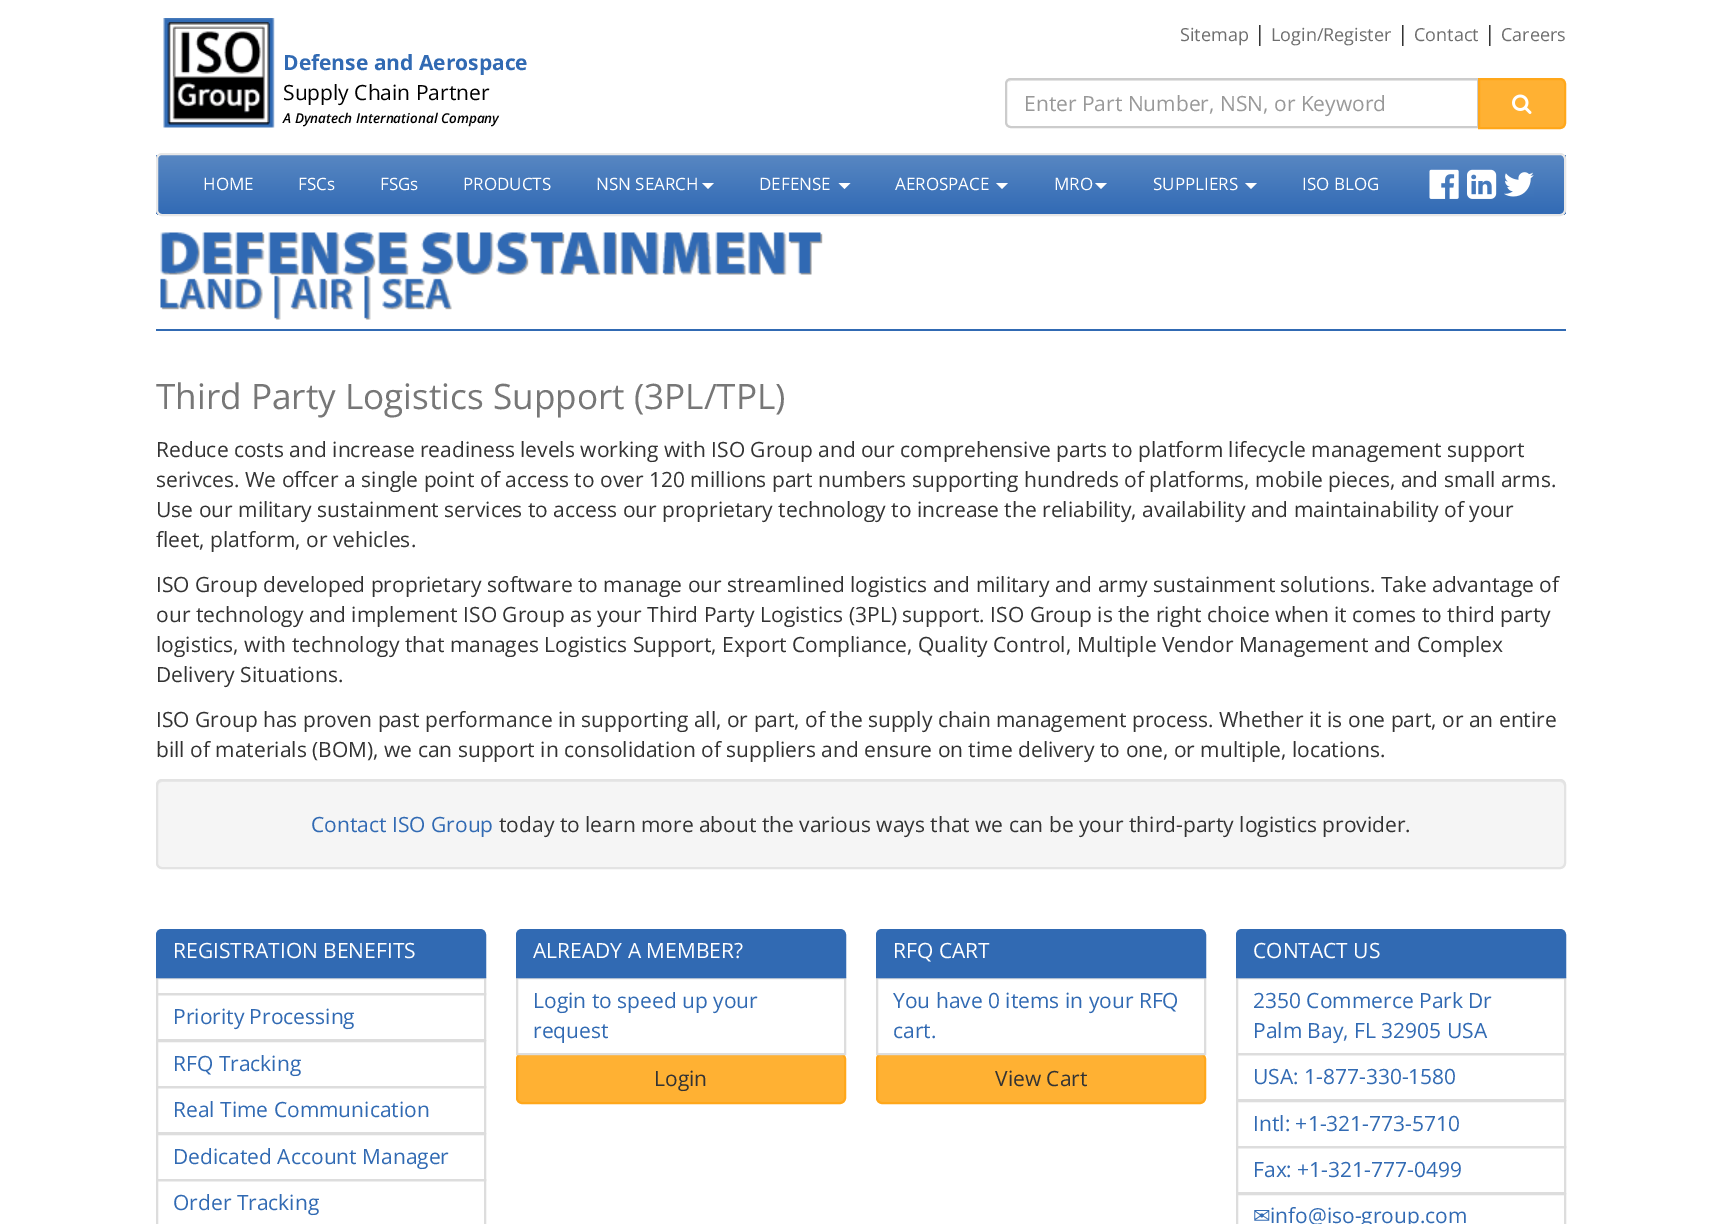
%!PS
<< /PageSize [1722 1224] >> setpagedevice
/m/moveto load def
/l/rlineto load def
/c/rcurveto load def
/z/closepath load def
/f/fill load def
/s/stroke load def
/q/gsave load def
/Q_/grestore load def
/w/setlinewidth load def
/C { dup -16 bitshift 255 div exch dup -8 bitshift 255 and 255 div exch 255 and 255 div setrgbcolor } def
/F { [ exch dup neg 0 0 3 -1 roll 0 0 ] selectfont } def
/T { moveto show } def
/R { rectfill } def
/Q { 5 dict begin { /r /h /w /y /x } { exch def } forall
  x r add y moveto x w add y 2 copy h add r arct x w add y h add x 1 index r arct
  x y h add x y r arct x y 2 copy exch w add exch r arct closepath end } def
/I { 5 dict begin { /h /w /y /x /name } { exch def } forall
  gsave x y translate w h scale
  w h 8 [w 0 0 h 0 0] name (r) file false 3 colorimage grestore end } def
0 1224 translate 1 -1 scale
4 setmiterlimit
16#FFFFFF C
0 0 1722 1224 R
(1.rgb) 163 18 112 110 I
/OpenSans-Bold 21 F
16#316AB3 C
(Defense and Aerospace) 283 70 T
/OpenSans-Regular 21 F
16#000000 C
(Supply Chain Partner) 283 100 T
/OpenSans-SemiBoldItalic 13.5 F
(A Dynatech International Company) 283 123 T
/OpenSans-Regular 18 F
16#6E6E6E C
(Sitemap) 1180 41 T
/OpenSans-Regular 21 F
16#333333 C
(|) 1254 41 T
/OpenSans-Regular 18 F
16#6E6E6E C
(Login/Register) 1271 41 T
/OpenSans-Regular 21 F
16#333333 C
(|) 1397 41 T
/OpenSans-Regular 18 F
16#6E6E6E C
(Contact) 1414 41 T
/OpenSans-Regular 21 F
16#333333 C
(|) 1484 41 T
/OpenSans-Regular 18 F
16#6E6E6E C
(Careers) 1501 41 T
16#ECECEC C
1011 81 m 467 0 l 0 -1 l -466 0 l -2 0 -3 1 -4 2 c z f
16#CCCCCC C
2 w
1011 79 m 467 0 l 0 48 l -467 0 l -3 0 -5 -2 -5 -5 c 0 -38 l 0 -3 2 -5 5 -5 c z s
/OpenSans-Regular 21 F
16#999999 C
(Enter Part Number, NSN, or Keyword) 1024 111 T
16#FFB133 C
1479 79 m 81 0 l 3 0 5 2 5 5 c 0 39 l 0 3 -2 5 -5 5 c -81 0 l z q f Q_
16#FFA71A C
s
(2.rgb) 1512 94 20 20 I
q
156 153 1410 63 6 Q clip newpath
q 156 155 m 1410 0 l 0 60 l -1410 0 l z clip newpath
<< /ShadingType 2 /ColorSpace /DeviceRGB /Coords [861 154 861 215] /Extend [true true] /Function << /FunctionType 2 /Domain [0 1] /C0 [.349 .533 .761] /C1 [.192 .416 .71] /N 1 >> >> shfill Q_
Q_
16#E7E7E7 C
157 154 1408 61 5 Q s
/OpenSans-Regular 17 F
16#FFFFFF C
(HOME) 203 190 T
(FSCs) 298 190 T
(FSGs) 380 190 T
(PRODUCTS) 463 190 T
(NSN SEARCH) 596 190 T
702 183 m 12 0 l -6 6 l z f
(DEFENSE) 759 190 T
838.5 183 m 12 0 l -6 6 l z f
(AEROSPACE) 895 190 T
996 183 m 12 0 l -6 6 l z f
(MRO) 1054 190 T
1095 183 m 12 0 l -6 6 l z f
(SUPPLIERS) 1153 190 T
1245 183 m 12 0 l -6 6 l z f
(ISO BLOG) 1302 190 T
(3.rgb) 1429 169 30 30 I
(4.rgb) 1467 169 30 30 I
(5.rgb) 1504 172 30 25 I
(6.rgb) 160 232 663 88 I
16#316AB3 C
156 329 1410 2 R
/OpenSans-Regular 35.1 F
16#777777 C
(Third Party Logistics Support \(3PL/TPL\)) 156 409 T
/OpenSans-Regular 21 F
16#333333 C
(Reduce costs and increase readiness levels working with ISO Group and our comprehensive parts to platform lifecycle management support) 156 457 T
(serivces. We offcer a single point of access to over 120 millions part numbers supporting hundreds of platforms, mobile pieces, and small arms.) 156 487 T
(Use our military sustainment services to access our proprietary technology to increase the reliability, availability and maintainability of your) 156 517 T
(fleet, platform, or vehicles.) 156 547 T
(ISO Group developed proprietary software to manage our streamlined logistics and military and army sustainment solutions. Take advantage of) 156 592 T
(our technology and implement ISO Group as your Third Party Logistics \(3PL\) support. ISO Group is the right choice when it comes to third party) 156 622 T
(logistics, with technology that manages Logistics Support, Export Compliance, Quality Control, Multiple Vendor Management and Complex) 156 652 T
(Delivery Situations.) 156 682 T
(ISO Group has proven past performance in supporting all, or part, of the supply chain management process. Whether it is one part, or an entire) 156 727 T
(bill of materials \(BOM\), we can support in consolidation of suppliers and ensure on time delivery to one, or multiple, locations.) 156 757 T
16#F5F5F5 C
156 779 1410 90 6 Q f
16#E9E9E9 C
162 782 m 1398 0 l 2 0 4 2 4 4 c 0 79 l 1 -1 1 -2 1 -3 c 0 -77 l 0 -3 -2 -5 -5 -5 c -1397 0 l -3 0 -5 2 -5 5 c 0 1 l 0 -2 2 -4 4 -4 c z f
16#E3E3E3 C
157 780 1408 88 5 Q s
16#316AB3 C
(Contact ISO Group) 311 832 T
16#333333 C
(today to learn more about the various ways that we can be your third-party logistics provider.) 499 832 T
16#DDDDDD C
157 978 328 16 rectstroke
16#316AB3 C
162 930 m 318 0 l 3 0 5 2 5 5 c 0 42 l -328 0 l 0 -42 l 0 -3 2 -5 5 -5 c z q f Q_
s
16#FFFFFF C
(REGISTRATION BENEFITS) 173 958 T
16#DDDDDD C
157 994 328 46 rectstroke
16#316AB3 C
(Priority Processing) 173 1024 T
16#DDDDDD C
157 1041 328 46 rectstroke
16#316AB3 C
(RFQ Tracking) 173 1071 T
16#DDDDDD C
157 1087 328 46 rectstroke
16#316AB3 C
(Real Time Communication) 173 1117 T
16#DDDDDD C
157 1134 328 46 rectstroke
16#316AB3 C
(Dedicated Account Manager) 173 1164 T
16#DDDDDD C
157 1180 328 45 rectstroke
16#316AB3 C
(Order Tracking) 173 1210 T
16#FFB133 C
517 1054 328 49 5 Q q f Q_
16#FFA71A C
s
16#DDDDDD C
517 978 328 76 rectstroke
16#316AB3 C
522 930 m 318 0 l 3 0 5 2 5 5 c 0 42 l -328 0 l 0 -42 l 0 -3 2 -5 5 -5 c z q f Q_
s
16#FFFFFF C
(ALREADY A MEMBER?) 533 958 T
16#316AB3 C
(Login to speed up your) 533 1008 T
(request) 533 1038 T
16#333333 C
(Login) 654 1086 T
16#FFB133 C
877 1054 328 49 5 Q q f Q_
16#FFA71A C
s
16#DDDDDD C
877 978 328 76 rectstroke
16#316AB3 C
882 930 m 318 0 l 3 0 5 2 5 5 c 0 42 l -328 0 l 0 -42 l 0 -3 2 -5 5 -5 c z q f Q_
s
16#FFFFFF C
(RFQ CART) 893 958 T
16#316AB3 C
(You have 0 items in your RFQ) 893 1008 T
(cart.) 893 1038 T
16#333333 C
(View Cart) 995 1086 T
16#DDDDDD C
1237 978 328 76 rectstroke
16#316AB3 C
1242 930 m 318 0 l 3 0 5 2 5 5 c 0 42 l -328 0 l 0 -42 l 0 -3 2 -5 5 -5 c z q f Q_
s
16#FFFFFF C
(CONTACT US) 1253 958 T
16#316AB3 C
(2350 Commerce Park Dr) 1253 1008 T
(Palm Bay, FL 32905 USA) 1253 1038 T
16#DDDDDD C
1237 1054 328 46 rectstroke
16#316AB3 C
(USA: 1-877-330-1580) 1253 1084 T
16#DDDDDD C
1237 1101 328 46 rectstroke
16#316AB3 C
(Intl: +1-321-773-5710) 1253 1131 T
16#DDDDDD C
1237 1147 328 46 rectstroke
16#316AB3 C
(Fax: +1-321-777-0499) 1253 1177 T
16#DDDDDD C
1237 1194 328 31 rectstroke
/DejaVuSans-Regular 21 F
16#316AB3 C
(✉) 1253 1223 T
/OpenSans-Regular 21 F
(info@iso-group.com) 1270 1223 T
showpage
